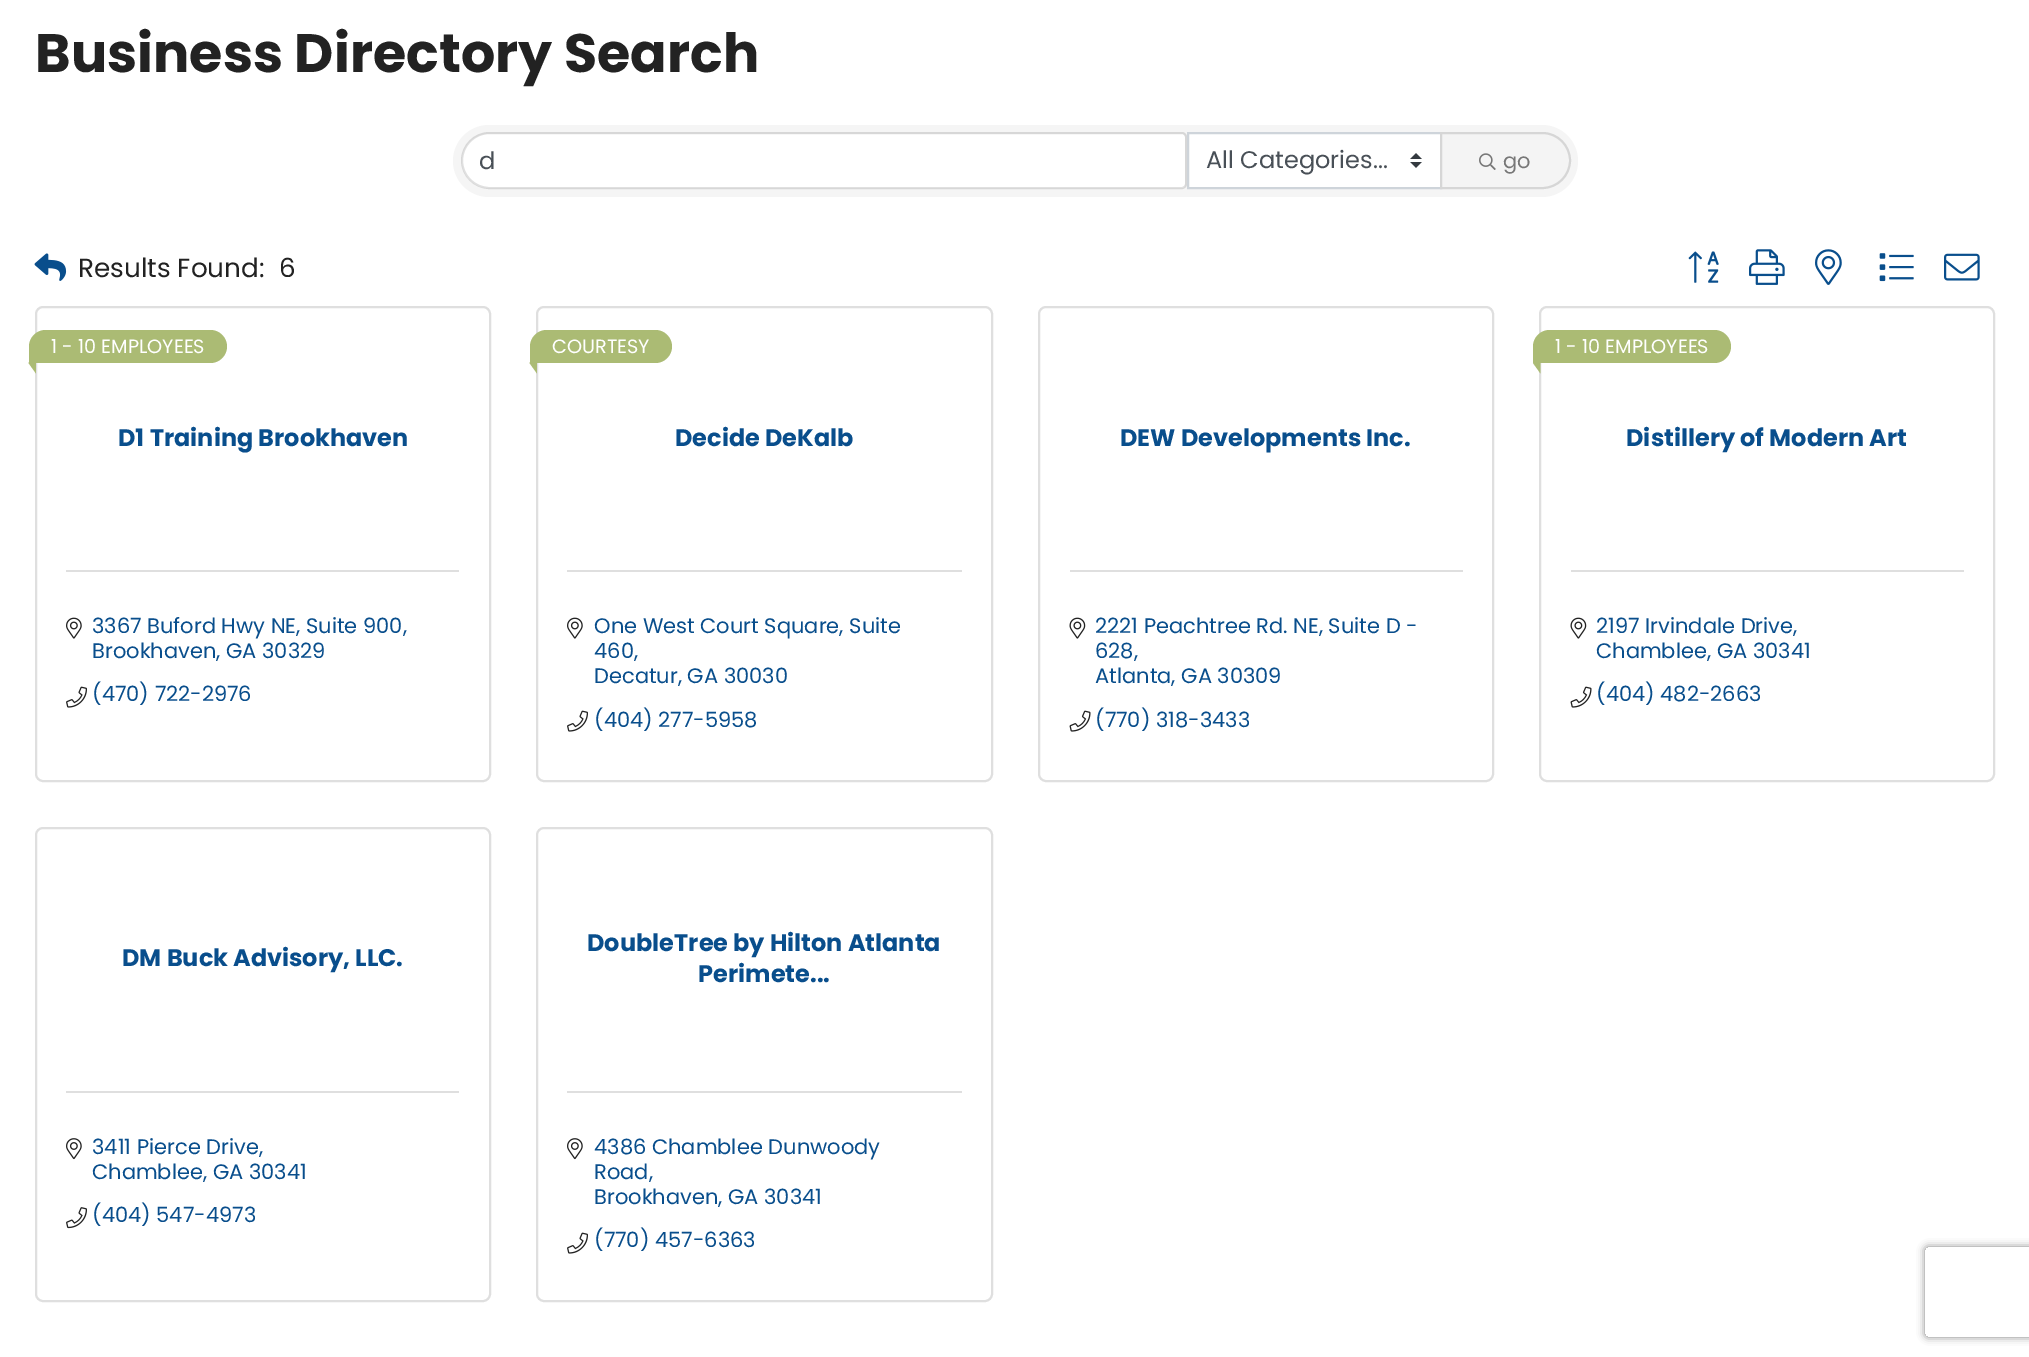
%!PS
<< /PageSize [2029 1357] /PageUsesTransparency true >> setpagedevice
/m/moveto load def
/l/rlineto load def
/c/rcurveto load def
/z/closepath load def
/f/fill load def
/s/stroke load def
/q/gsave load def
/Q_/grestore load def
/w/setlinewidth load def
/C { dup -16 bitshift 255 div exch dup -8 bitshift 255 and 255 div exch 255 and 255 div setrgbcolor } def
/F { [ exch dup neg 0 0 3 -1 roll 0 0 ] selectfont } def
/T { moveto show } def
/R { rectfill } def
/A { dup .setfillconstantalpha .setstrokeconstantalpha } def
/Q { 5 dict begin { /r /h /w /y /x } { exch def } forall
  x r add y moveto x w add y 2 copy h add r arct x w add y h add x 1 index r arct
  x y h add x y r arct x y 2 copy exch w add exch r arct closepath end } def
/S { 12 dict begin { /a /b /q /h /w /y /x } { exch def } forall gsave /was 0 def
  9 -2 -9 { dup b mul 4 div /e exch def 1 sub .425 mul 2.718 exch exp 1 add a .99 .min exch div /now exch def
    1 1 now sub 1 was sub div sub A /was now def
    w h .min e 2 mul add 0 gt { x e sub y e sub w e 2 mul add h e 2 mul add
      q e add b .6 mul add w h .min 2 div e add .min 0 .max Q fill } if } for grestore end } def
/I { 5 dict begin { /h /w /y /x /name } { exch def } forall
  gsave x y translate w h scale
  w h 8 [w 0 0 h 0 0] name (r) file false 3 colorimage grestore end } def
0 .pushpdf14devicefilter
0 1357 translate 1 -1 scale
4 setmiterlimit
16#FFFFFF C
0 0 2029 1357 R
/Poppins-Bold 54 F
16#222222 C
(Business Directory Search) 35 72 T
16#F5F5F5 C
453 125 1125 72 36 Q f
16#FFFFFF C
489 134 m 693 0 l 1.5 0 3 1.5 3 3 c 0 48 l 0 1.5 -1.5 3 -3 3 c -693 0 l -15 0 -27 -12 -27 -27 c 0 -15 12 -27 27 -27 c z f
0.12 A
16#000000 C
2 w
489.5 133 m 692.5 0 l 2 0 4 2 4 4 c 0 47 l 0 2 -2 4 -4 4 c -692.5 0 l -15 0 -27.5 -12.5 -27.5 -27.5 c 0 -15 12.5 -27.5 27.5 -27.5 c z s
/Poppins-Regular 24 F
1 A
16#495057 C
(d) 479 169 T
16#FFFFFF C
1189 134 251 53 R
(1.rgb) 1410 153 12 15 I
16#CED4DA C
1188 133 253 55 rectstroke
16#495057 C
(All Categories...) 1206 168 T
16#F4F4F4 C
1441 133 m 101.5 0 l 15 0 27.5 12.5 27.5 27.5 c 0 15 -12.5 27.5 -27.5 27.5 c -101.5 0 l z q f Q_
16#D6D6D6 C
s
(2.rgb) 1479 153 17 17 I
/Poppins-Regular 21 F
16#777777 C
(go) 1503 168 T
(3.rgb) 34 253 33 28 I
/Poppins-Regular 26.25 F
16#222222 C
(Results Found:) 78 277 T
(6) 279 277 T
(4.rgb) 1688 251 31 32 I
(5.rgb) 1749 249 36 36 I
(6.rgb) 1815 249 27 36 I
(7.rgb) 1879 253 35 29 I
(8.rgb) 1944 253 36 28 I
16#DFDFDF C
36 307 454 474 7 Q s
16#ABBB74 C
45.5 330 m 165 0 l 9 0 16.5 7.5 16.5 16.5 c 0 9 -7.5 16.5 -16.5 16.5 c -180.5 0 l -.5 0 -1 -.5 -1 -1 c 0 -15.5 l 0 -9 7.5 -16.5 16.5 -16.5 c z f
/Poppins-Regular 19.25 F
16#FFFFFF C
(1 - 10 EMPLOYEES) 51 353 T
16#ABBB74 C
36 352.5 m 0 21 l -7.5 -10.5 l z f
/Poppins-Bold 24 F
16#094E8C C
(D1 Training Brookhaven) 118 446 T
16#DFDFDF C
66 570 393 2 R
(9.rgb) 66 617 16 22 I
/Poppins-Regular 21 F
16#094E8C C
(3367 Buford Hwy NE, Suite 900,) 92 633 T
(Brookhaven, GA 30329) 92 658 T
(10.rgb) 66 686 21 22 I
(\(470\) 722-2976) 92 701 T
16#DFDFDF C
537 307 455 474 7 Q s
16#ABBB74 C
546.5 330 m 109 0 l 9 0 16.5 7.5 16.5 16.5 c 0 9 -7.5 16.5 -16.5 16.5 c -124.5 0 l -.5 0 -1 -.5 -1 -1 c 0 -15.5 l 0 -9 7.5 -16.5 16.5 -16.5 c z f
/Poppins-Regular 19.25 F
16#FFFFFF C
(COURTESY) 552 353 T
16#ABBB74 C
537 352.5 m 0 21 l -7.5 -10.5 l z f
/Poppins-Bold 24 F
16#094E8C C
(Decide DeKalb) 675 446 T
16#DFDFDF C
567 570 395 2 R
(9.rgb) 567 617 16 22 I
/Poppins-Regular 21 F
16#094E8C C
(One West Court Square, Suite) 594 633 T
(460,) 594 658 T
(Decatur, GA 30030) 594 683 T
(10.rgb) 567 710 21 22 I
(\(404\) 277-5958) 594 727 T
16#DFDFDF C
1039 307 454 474 7 Q s
/Poppins-Bold 24 F
16#094E8C C
(DEW Developments Inc.) 1120 446 T
16#DFDFDF C
1070 570 393 2 R
(11.rgb) 1069 617 17 22 I
/Poppins-Regular 21 F
16#094E8C C
(2221 Peachtree Rd. NE, Suite D -) 1095 633 T
(628,) 1095 658 T
(Atlanta, GA 30309) 1095 683 T
(12.rgb) 1069 710 22 22 I
(\(770\) 318-3433) 1095 727 T
16#DFDFDF C
1540 307 454 474 7 Q s
16#ABBB74 C
1549.5 330 m 165 0 l 9 0 16.5 7.5 16.5 16.5 c 0 9 -7.5 16.5 -16.5 16.5 c -180.5 0 l -.5 0 -1 -.5 -1 -1 c 0 -15.5 l 0 -9 7.5 -16.5 16.5 -16.5 c z f
/Poppins-Regular 19.25 F
16#FFFFFF C
(1 - 10 EMPLOYEES) 1555 353 T
16#ABBB74 C
1540.5 352.5 m 0 21 l -7.5 -10.5 l z f
/Poppins-Bold 24 F
16#094E8C C
(Distillery of Modern Art) 1626 446 T
16#DFDFDF C
1571 570 393 2 R
(11.rgb) 1570 617 17 22 I
/Poppins-Regular 21 F
16#094E8C C
(2197 Irvindale Drive,) 1596 633 T
(Chamblee, GA 30341) 1596 658 T
(12.rgb) 1570 686 22 22 I
(\(404\) 482-2663) 1596 701 T
16#DFDFDF C
36 828 454 473 7 Q s
/Poppins-Bold 24 F
16#094E8C C
(DM Buck Advisory, LLC.) 122 966 T
16#DFDFDF C
66 1091 393 2 R
(13.rgb) 66 1138 16 22 I
/Poppins-Regular 21 F
16#094E8C C
(3411 Pierce Drive,) 92 1154 T
(Chamblee, GA 30341) 92 1179 T
(14.rgb) 66 1207 21 22 I
(\(404\) 547-4973) 92 1222 T
16#DFDFDF C
537 828 455 473 7 Q s
/Poppins-Bold 24 F
16#094E8C C
(DoubleTree by Hilton Atlanta) 587 951 T
(Perimete...) 698 982 T
16#DFDFDF C
567 1091 395 2 R
(13.rgb) 567 1138 16 22 I
/Poppins-Regular 21 F
16#094E8C C
(4386 Chamblee Dunwoody) 594 1154 T
(Road,) 594 1179 T
(Brookhaven, GA 30341) 594 1204 T
(10.rgb) 567 1232 21 22 I
(\(770\) 457-6363) 594 1247 T
q
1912 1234 m 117 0 l 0 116 l -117 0 l z 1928 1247 m 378 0 l 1.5 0 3 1.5 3 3 c 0 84 l 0 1.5 -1.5 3 -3 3 c -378 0 l -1.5 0 -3 -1.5 -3 -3 c 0 -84 l 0 -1.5 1.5 -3 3 -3 c z eoclip newpath
16#808080 C
1925 1247 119 90 3 4 1 S
Q_
.poppdf14devicefilter showpage
